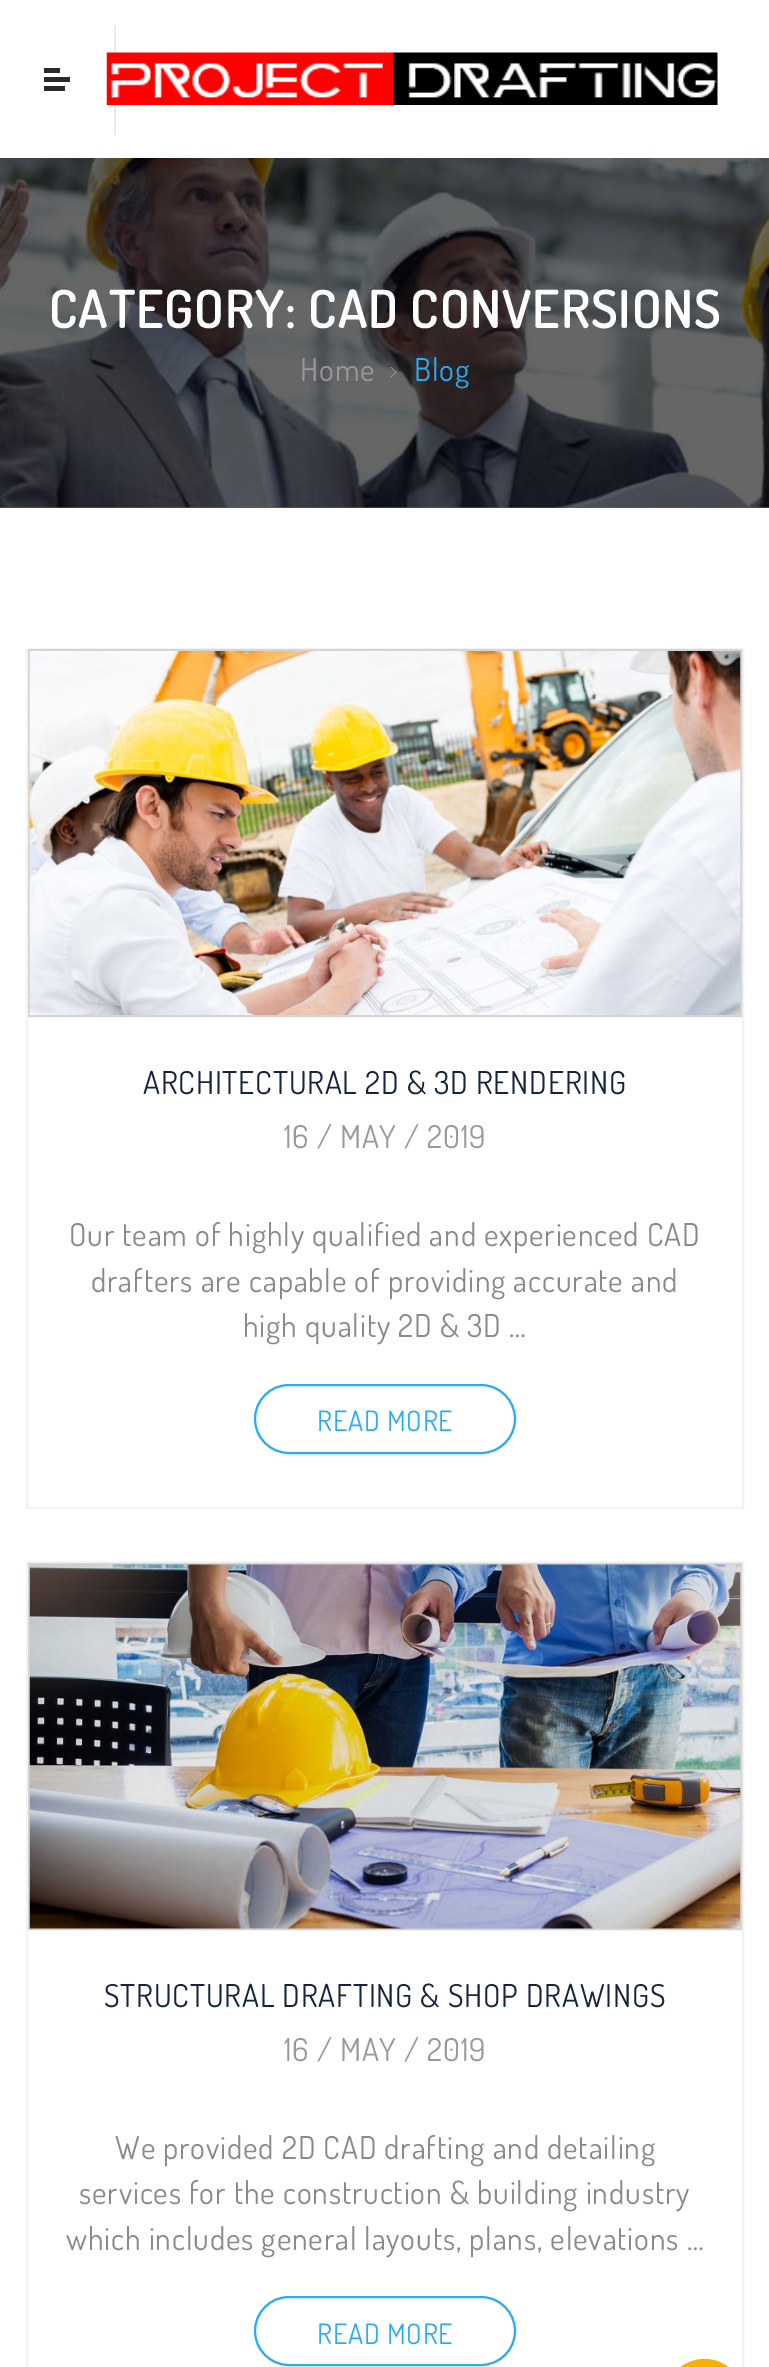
%!PS
<< /PageSize [769 2367] >> setpagedevice
/m/moveto load def
/f/fill load def
/s/stroke load def
/w/setlinewidth load def
/C { dup -16 bitshift 255 div exch dup -8 bitshift 255 and 255 div exch 255 and 255 div setrgbcolor } def
/F { [ exch dup neg 0 0 3 -1 roll 0 0 ] selectfont } def
/R { rectfill } def
/Q { 5 dict begin { /r /h /w /y /x } { exch def } forall
  x r add y moveto x w add y 2 copy h add r arct x w add y h add x 1 index r arct
  x y h add x y r arct x y 2 copy exch w add exch r arct closepath end } def
/I { 5 dict begin { /h /w /y /x /name } { exch def } forall
  gsave x y translate w h scale
  w h 8 [w 0 0 h 0 0] name (r) file false 3 colorimage grestore end } def
0 2367 translate 1 -1 scale
4 setmiterlimit
16#FFFFFF C
0 0 769 2367 R
16#666666 C
0 507 769 1 R
16#E6EAEA C
114 25 2 110 R
16#2A2A2A C
44 68 16 5 R
44 77 26 5 R
44 86 21 5 R
(1.rgb) 106 52 612 53 I
(2.rgb) 0 158 769 350 I
/Dosis-SemiBold 52.5 F
16#FFFFFF C
49 328 m .88 0 (CATEGORY: CAD CONVERSIONS) ashow
/Dosis-Regular 31.5 F
16#999999 C
300 381 m .88 0 (Home) ashow
(3.rgb) 390 366 7 12 I
16#2CABF5 C
414 381 m .88 0 (Blog) ashow
16#F3F3F3 C
2 w
27 649 716 859 rectstroke
16#D6D5D5 C
29 650 712 366 rectstroke
(4.rgb) 29 651 712 364 I
16#15233D C
143 1094 m .88 0 (ARCHITECTURAL 2D & 3D RENDERING) ashow
16#999999 C
284 1148 m .88 0 (16 / MAY / 2019) ashow
16#8A8A8A C
69 1246 m .88 0 (Our team of highly qualified and experienced CAD) ashow
91 1292 m .88 0 (drafters are capable of providing accurate and) ashow
243 1337 m .88 0 (high quality 2D & 3D …) ashow
16#2CABF5 C
255 1385 260 68 34 Q s
/Dosis-Regular 28 F
317 1431 m .88 0 (READ MORE) ashow
16#F3F3F3 C
27 1562 716 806 rectstroke
16#D6D5D5 C
29 1564 712 365 rectstroke
(5.rgb) 29 1564 712 365 I
/Dosis-Regular 31.5 F
16#15233D C
104 2007 m .88 0 (STRUCTURAL DRAFTING & SHOP DRAWINGS) ashow
16#999999 C
284 2061 m .88 0 (16 / MAY / 2019) ashow
16#8A8A8A C
115 2159 m .88 0 (We provided 2D CAD drafting and detailing) ashow
79 2204 m .88 0 (services for the construction & building industry) ashow
66 2250 m .88 0 (which includes general layouts, plans, elevations …) ashow
16#2CABF5 C
255 2297 260 68 34 Q s
/Dosis-Regular 28 F
317 2344 m .88 0 (READ MORE) ashow
16#F7B200 C
665 2359 79 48 39.5 Q f
showpage
